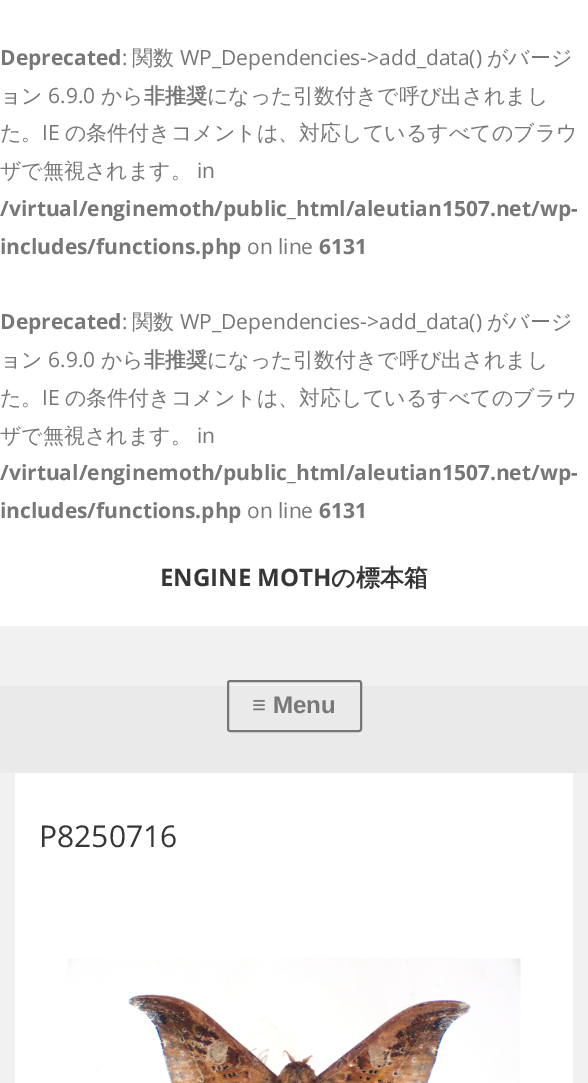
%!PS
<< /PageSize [588 1083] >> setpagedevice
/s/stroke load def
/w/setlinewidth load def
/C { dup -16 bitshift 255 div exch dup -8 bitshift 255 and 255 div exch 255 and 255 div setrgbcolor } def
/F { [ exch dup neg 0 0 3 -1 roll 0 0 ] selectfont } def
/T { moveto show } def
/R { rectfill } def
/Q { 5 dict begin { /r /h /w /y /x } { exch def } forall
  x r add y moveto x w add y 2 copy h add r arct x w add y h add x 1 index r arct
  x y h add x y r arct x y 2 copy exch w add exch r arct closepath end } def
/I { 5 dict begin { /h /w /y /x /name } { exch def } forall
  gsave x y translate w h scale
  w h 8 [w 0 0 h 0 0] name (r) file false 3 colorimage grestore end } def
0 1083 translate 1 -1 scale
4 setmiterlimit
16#FFFFFF C
0 0 588 1083 R
/OpenSans-Bold 21 F
16#777777 C
(Deprecated) 0 65 T
/OpenSans-Regular 21 F
(:) 122 65 T
/WenQuanYiZenHei-Medium 21 F
(関数) 132 65 T
/OpenSans-Regular 21 F
(WP_Dependencies->add_data\(\)) 180 65 T
/WenQuanYiZenHei-Medium 21 F
(がバージ) 487 65 T
(ョン) 0 103 T
/OpenSans-Regular 21 F
(6.9.0) 48 103 T
/WenQuanYiZenHei-Medium 21 F
(から) 101 103 T
/WenQuanYiZenHei-Bold 21 F
(非推奨) 144 103 T
/WenQuanYiZenHei-Medium 21 F
(になった引数付きで呼び出されまし) 207 103 T
(た。) 0 140 T
/OpenSans-Regular 21 F
(IE) 42 140 T
/WenQuanYiZenHei-Medium 21 F
(の条件付きコメントは、対応しているすべてのブラウ) 65 140 T
(ザで無視されます。) 0 178 T
/OpenSans-Regular 21 F
(in) 197 178 T
/OpenSans-Bold 21 F
(/virtual/enginemoth/public_html/aleutian1507.net/wp-) 0 216 T
(includes/functions.php) 0 254 T
/OpenSans-Regular 21 F
(on line) 247 254 T
/OpenSans-Bold 21 F
(6131) 319 254 T
(Deprecated) 0 329 T
/OpenSans-Regular 21 F
(:) 122 329 T
/WenQuanYiZenHei-Medium 21 F
(関数) 132 329 T
/OpenSans-Regular 21 F
(WP_Dependencies->add_data\(\)) 180 329 T
/WenQuanYiZenHei-Medium 21 F
(がバージ) 487 329 T
(ョン) 0 367 T
/OpenSans-Regular 21 F
(6.9.0) 48 367 T
/WenQuanYiZenHei-Medium 21 F
(から) 101 367 T
/WenQuanYiZenHei-Bold 21 F
(非推奨) 144 367 T
/WenQuanYiZenHei-Medium 21 F
(になった引数付きで呼び出されまし) 207 367 T
(た。) 0 405 T
/OpenSans-Regular 21 F
(IE) 42 405 T
/WenQuanYiZenHei-Medium 21 F
(の条件付きコメントは、対応しているすべてのブラウ) 65 405 T
(ザで無視されます。) 0 443 T
/OpenSans-Regular 21 F
(in) 197 443 T
/OpenSans-Bold 21 F
(/virtual/enginemoth/public_html/aleutian1507.net/wp-) 0 480 T
(includes/functions.php) 0 518 T
/OpenSans-Regular 21 F
(on line) 247 518 T
/OpenSans-Bold 21 F
(6131) 319 518 T
/OpenSans-Bold 24 F
16#363636 C
(ENGINE MOTH) 160 586 T
/WenQuanYiZenHei-Bold 24 F
(の標本箱) 331 586 T
16#F1F1F1 C
0 626 588 457 R
16#EAEAEA C
0 686 588 87 R
16#777777 C
2 w
228 681 133 50 2 Q s
/LiberationSans-Bold 24 F
(≡ Menu) 252 713 T
16#FFFFFF C
15 773 558 310 R
/OpenSans-Regular 30 F
16#363636 C
(P8250716) 39 847 T
(1.rgb) 67 958 454 125 I
showpage
